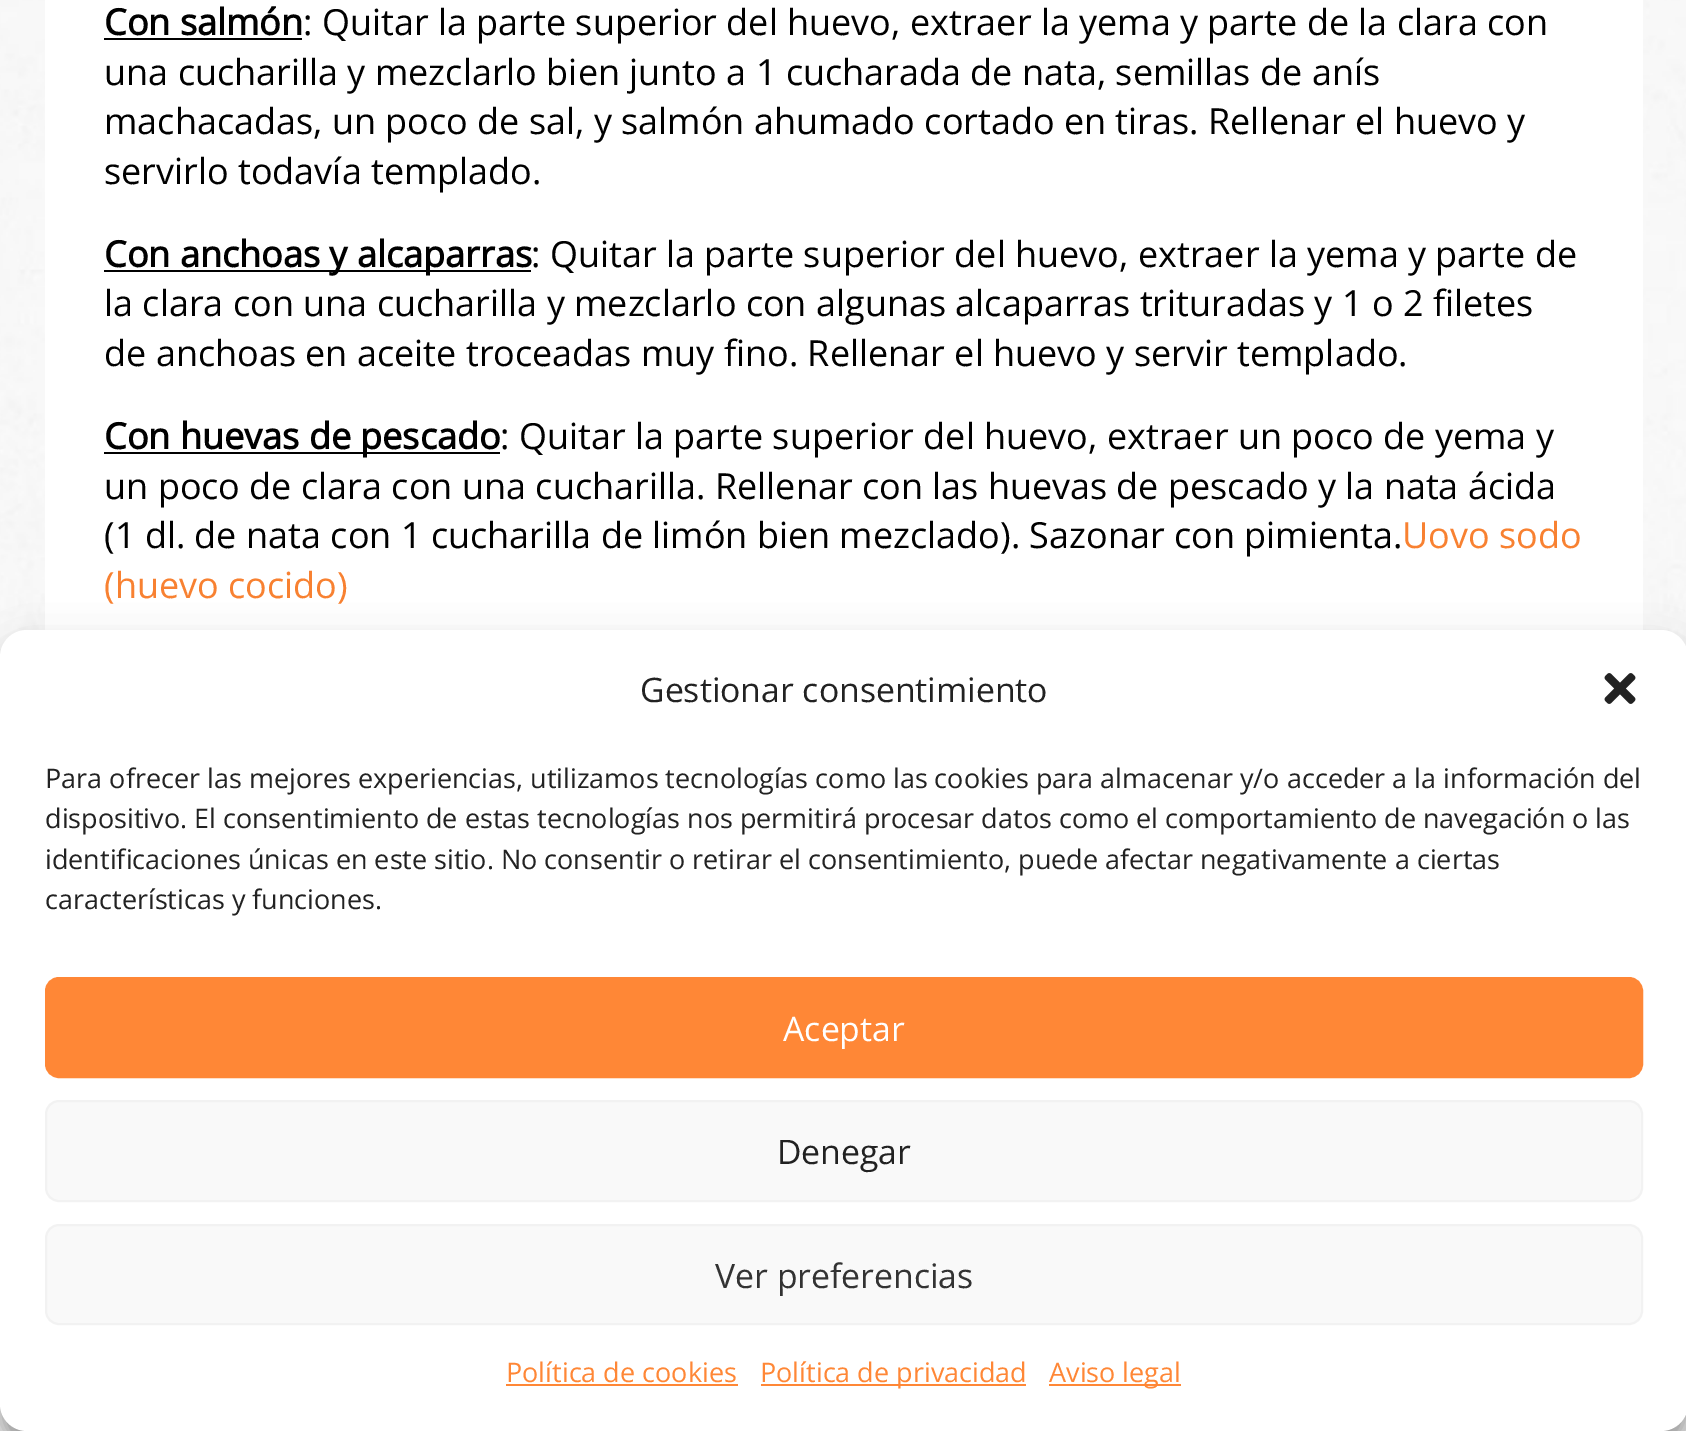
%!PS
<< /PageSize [1686 1431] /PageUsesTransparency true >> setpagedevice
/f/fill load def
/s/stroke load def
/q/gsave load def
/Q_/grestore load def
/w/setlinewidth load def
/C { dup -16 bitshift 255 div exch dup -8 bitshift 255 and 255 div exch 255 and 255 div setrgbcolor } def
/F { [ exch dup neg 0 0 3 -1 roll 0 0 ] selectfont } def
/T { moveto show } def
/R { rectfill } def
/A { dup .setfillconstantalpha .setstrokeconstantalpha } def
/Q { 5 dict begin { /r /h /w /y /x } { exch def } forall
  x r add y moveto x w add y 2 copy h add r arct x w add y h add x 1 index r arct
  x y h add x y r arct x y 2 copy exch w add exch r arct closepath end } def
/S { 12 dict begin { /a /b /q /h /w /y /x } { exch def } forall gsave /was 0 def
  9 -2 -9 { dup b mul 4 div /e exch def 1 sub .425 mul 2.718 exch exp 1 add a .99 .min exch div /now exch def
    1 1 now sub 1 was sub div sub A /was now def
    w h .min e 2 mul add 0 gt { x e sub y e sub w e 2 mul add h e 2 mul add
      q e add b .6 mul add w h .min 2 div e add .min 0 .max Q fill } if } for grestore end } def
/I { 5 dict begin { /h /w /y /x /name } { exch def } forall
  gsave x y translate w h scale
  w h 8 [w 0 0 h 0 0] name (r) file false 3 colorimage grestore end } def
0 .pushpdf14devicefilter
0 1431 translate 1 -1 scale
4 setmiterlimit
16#FFFFFF C
0 0 1686 1431 R
(1.rgb) 0 0 1686 1431 I
45 0 1598 630 R
/OpenSans-Bold 36 F
16#000000 C
(Con salmón) 104 35 T
104 38 198 2 R
/OpenSans-Regular 36 F
(: Quitar la parte superior del huevo, extraer la yema y parte de la clara con) 303 35 T
(una cucharilla y mezclarlo bien junto a 1 cucharada de nata, semillas de anís) 104 85 T
(machacadas, un poco de sal, y salmón ahumado cortado en tiras. Rellenar el huevo y) 104 134 T
(servirlo todavía templado.) 104 184 T
104 270 427 2 R
/OpenSans-Bold 36 F
(Con anchoas y alcaparras) 104 267 T
/OpenSans-Regular 36 F
(: Quitar la parte superior del huevo, extraer la yema y parte de) 531 267 T
(la clara con una cucharilla y mezclarlo con algunas alcaparras trituradas y 1 o 2 filetes) 104 316 T
(de anchoas en aceite troceadas muy fino. Rellenar el huevo y servir templado.) 104 366 T
104 452 396 2 R
/OpenSans-Bold 36 F
(Con huevas de pescado) 104 449 T
/OpenSans-Regular 36 F
(: Quitar la parte superior del huevo, extraer un poco de yema y) 500 449 T
(un poco de clara con una cucharilla. Rellenar con las huevas de pescado y la nata ácida) 104 499 T
(\(1 dl. de nata con 1 cucharilla de limón bien mezclado\). Sazonar con pimienta.) 104 548 T
16#F88131 C
(Uovo sodo) 1402 548 T
(\(huevo cocido\)) 104 598 T
16#000000 C
0 644 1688 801 27 7 .23 S
0 653 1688 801 27 22.5 .19 S
16#FFFFFF C
0 630 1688 801 27 Q f
/OpenSans-Regular 33.75 F
16#222222 C
(Gestionar consentimiento) 640 702 T
(2.rgb) 1604 673 32 31 I
/OpenSans-Regular 27 F
(Para ofrecer las mejores experiencias, utilizamos tecnologías como las cookies para almacenar y/o acceder a la información del) 45 788 T
(dispositivo. El consentimiento de estas tecnologías nos permitirá procesar datos como el comportamiento de navegación o las) 45 828 T
(identificaciones únicas en este sitio. No consentir o retirar el consentimiento, puede afectar negativamente a ciertas) 45 869 T
(características y funciones.) 45 909 T
16#FF8736 C
46 978 1596 99 13 Q q f Q_
2 w
s
/OpenSans-Regular 33.75 F
16#FFFFFF C
(Aceptar) 783 1041 T
16#F9F9F9 C
46 1101 1596 100 13 Q q f Q_
16#F2F2F2 C
s
16#222222 C
(Denegar) 777 1164 T
16#F9F9F9 C
46 1225 1596 99 13 Q q f Q_
16#F2F2F2 C
s
16#333333 C
(Ver preferencias) 715 1288 T
/OpenSans-Regular 27 F
16#FF8736 C
(Política de cookies) 506 1382 T
506 1384 232 2 R
761 1384 265 2 R
(Política de privacidad) 760 1382 T
1049 1384 132 2 R
(Aviso legal) 1049 1382 T
.poppdf14devicefilter showpage
